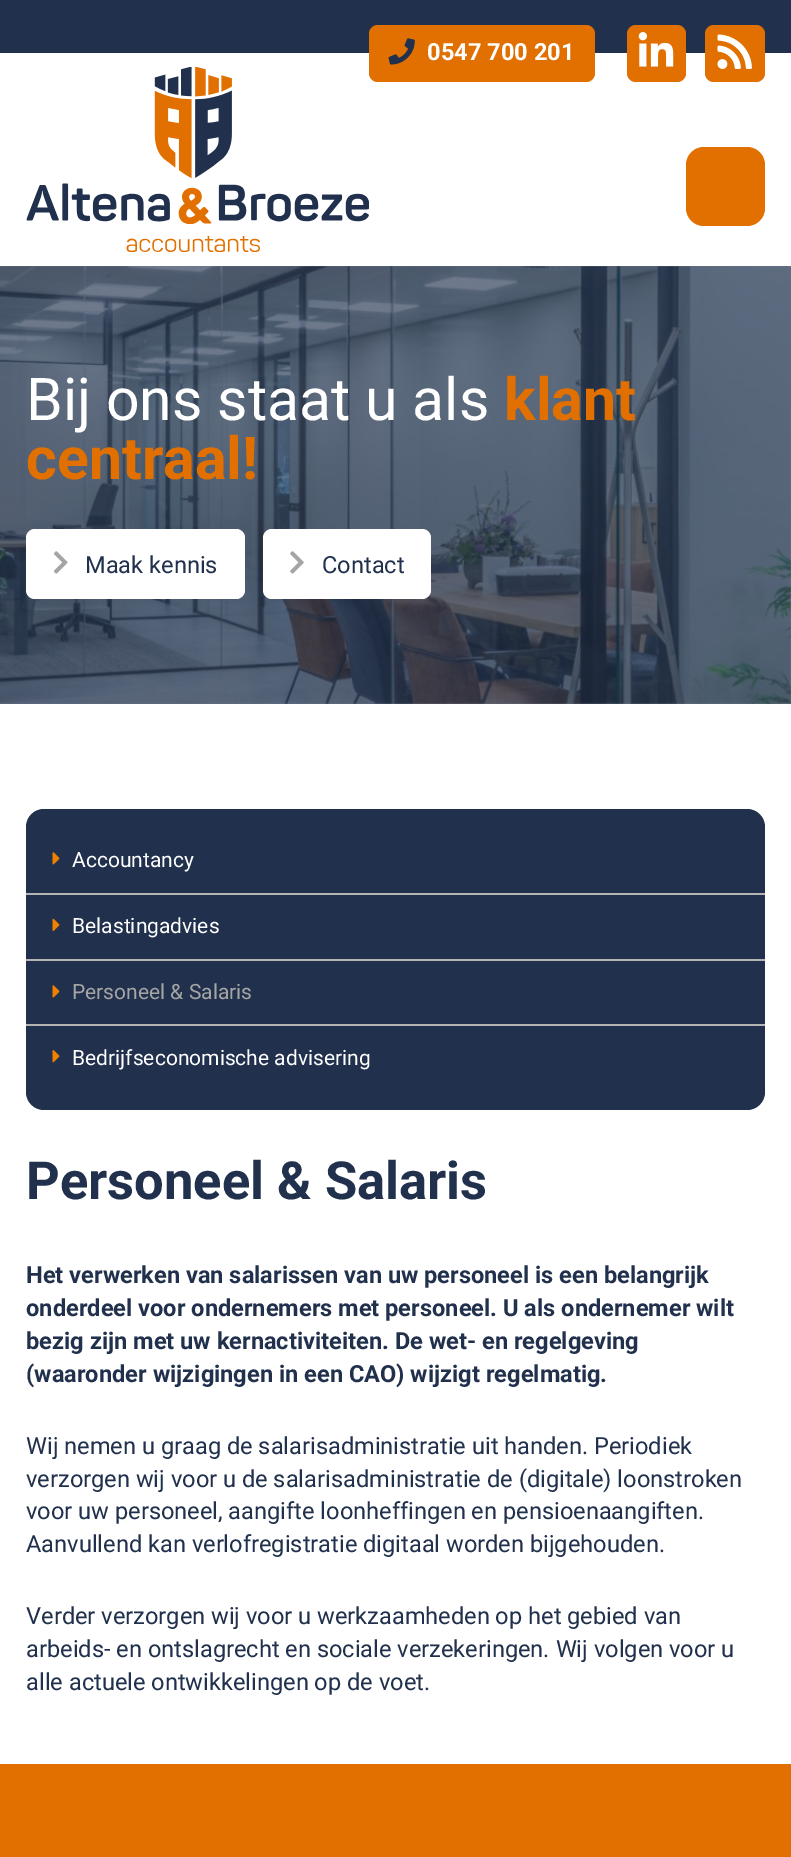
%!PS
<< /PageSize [791 1857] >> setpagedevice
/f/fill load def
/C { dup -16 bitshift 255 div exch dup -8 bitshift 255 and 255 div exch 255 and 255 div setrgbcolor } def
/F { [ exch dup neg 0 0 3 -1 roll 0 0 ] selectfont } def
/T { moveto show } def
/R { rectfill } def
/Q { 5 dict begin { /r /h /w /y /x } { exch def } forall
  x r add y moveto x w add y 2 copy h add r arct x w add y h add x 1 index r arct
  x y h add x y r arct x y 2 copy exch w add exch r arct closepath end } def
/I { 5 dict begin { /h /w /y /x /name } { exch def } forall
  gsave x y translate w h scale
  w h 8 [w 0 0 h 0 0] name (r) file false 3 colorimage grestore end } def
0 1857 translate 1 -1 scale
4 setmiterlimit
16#FFFFFF C
0 0 791 1857 R
16#6F798B C
0 266 791 438 R
16#21314D C
0 0 791 53 R
16#E17000 C
369 25 226 57 9 Q f
(1.rgb) 388 38 27 27 I
/Roboto-Bold 23.6 F
16#FFFFFF C
(0547 700 201) 427 60 T
16#E17000 C
627 25 59 57 9 Q f
(2.rgb) 638 32 36 35 I
705 25 60 57 9 Q f
(3.rgb) 717 34 35 35 I
(4.rgb) 26 67 343 185 I
686 147 79 79 18 Q f
(5.rgb) 0 266 791 438 I
/Roboto-Regular 59 F
16#FFFFFF C
(Bij ons staat u als) 26 420 T
/Roboto-Bold 59 F
16#E17000 C
(klant) 504 420 T
(centraal!) 26 479 T
16#FFFFFF C
26 529 219 70 9 Q f
(6.rgb) 54 551 14 23 I
/Roboto-Regular 23.6 F
16#21314D C
(Maak kennis) 85 573 T
16#FFFFFF C
263 529 168 70 9 Q f
(7.rgb) 290 551 14 23 I
16#21314D C
(Contact) 322 573 T
26 809 739 301 18 Q f
(8.rgb) 52 852 8 13 I
/Roboto-Regular 21 F
16#FFFFFF C
(Accountancy) 72 867 T
16#B4B4B4 C
26 893 739 2 R
(9.rgb) 52 918 8 13 I
16#FFFFFF C
(Belastingadvies) 72 933 T
16#B4B4B4 C
26 959 739 2 R
(8.rgb) 52 985 8 13 I
16#A5A5A5 C
(Personeel & Salaris) 72 999 T
16#B4B4B4 C
26 1024 739 2 R
(10.rgb) 52 1050 8 13 I
16#FFFFFF C
(Bedrijfseconomische advisering) 72 1065 T
/Roboto-Bold 52.5 F
16#21314D C
(Personeel & Salaris) 26 1199 T
/Roboto-Bold 23.6 F
(Het verwerken van salarissen van uw personeel is een belangrijk) 26 1283 T
(onderdeel voor ondernemers met personeel. U als ondernemer wilt) 26 1316 T
(bezig zijn met uw kernactiviteiten. De wet- en regelgeving) 26 1349 T
(\(waaronder wijzigingen in een CAO\) wijzigt regelmatig.) 26 1382 T
/Roboto-Regular 23.6 F
(Wij nemen u graag de salarisadministratie uit handen. Periodiek) 26 1454 T
(verzorgen wij voor u de salarisadministratie de \(digitale\) loonstroken) 26 1487 T
(voor uw personeel, aangifte loonheffingen en pensioenaangiften.) 26 1519 T
(Aanvullend kan verlofregistratie digitaal worden bijgehouden.) 26 1552 T
(Verder verzorgen wij voor u werkzaamheden op het gebied van) 26 1624 T
(arbeids- en ontslagrecht en sociale verzekeringen. Wij volgen voor u) 26 1657 T
(alle actuele ontwikkelingen op de voet.) 26 1690 T
16#E17000 C
0 1764 791 93 R
showpage
